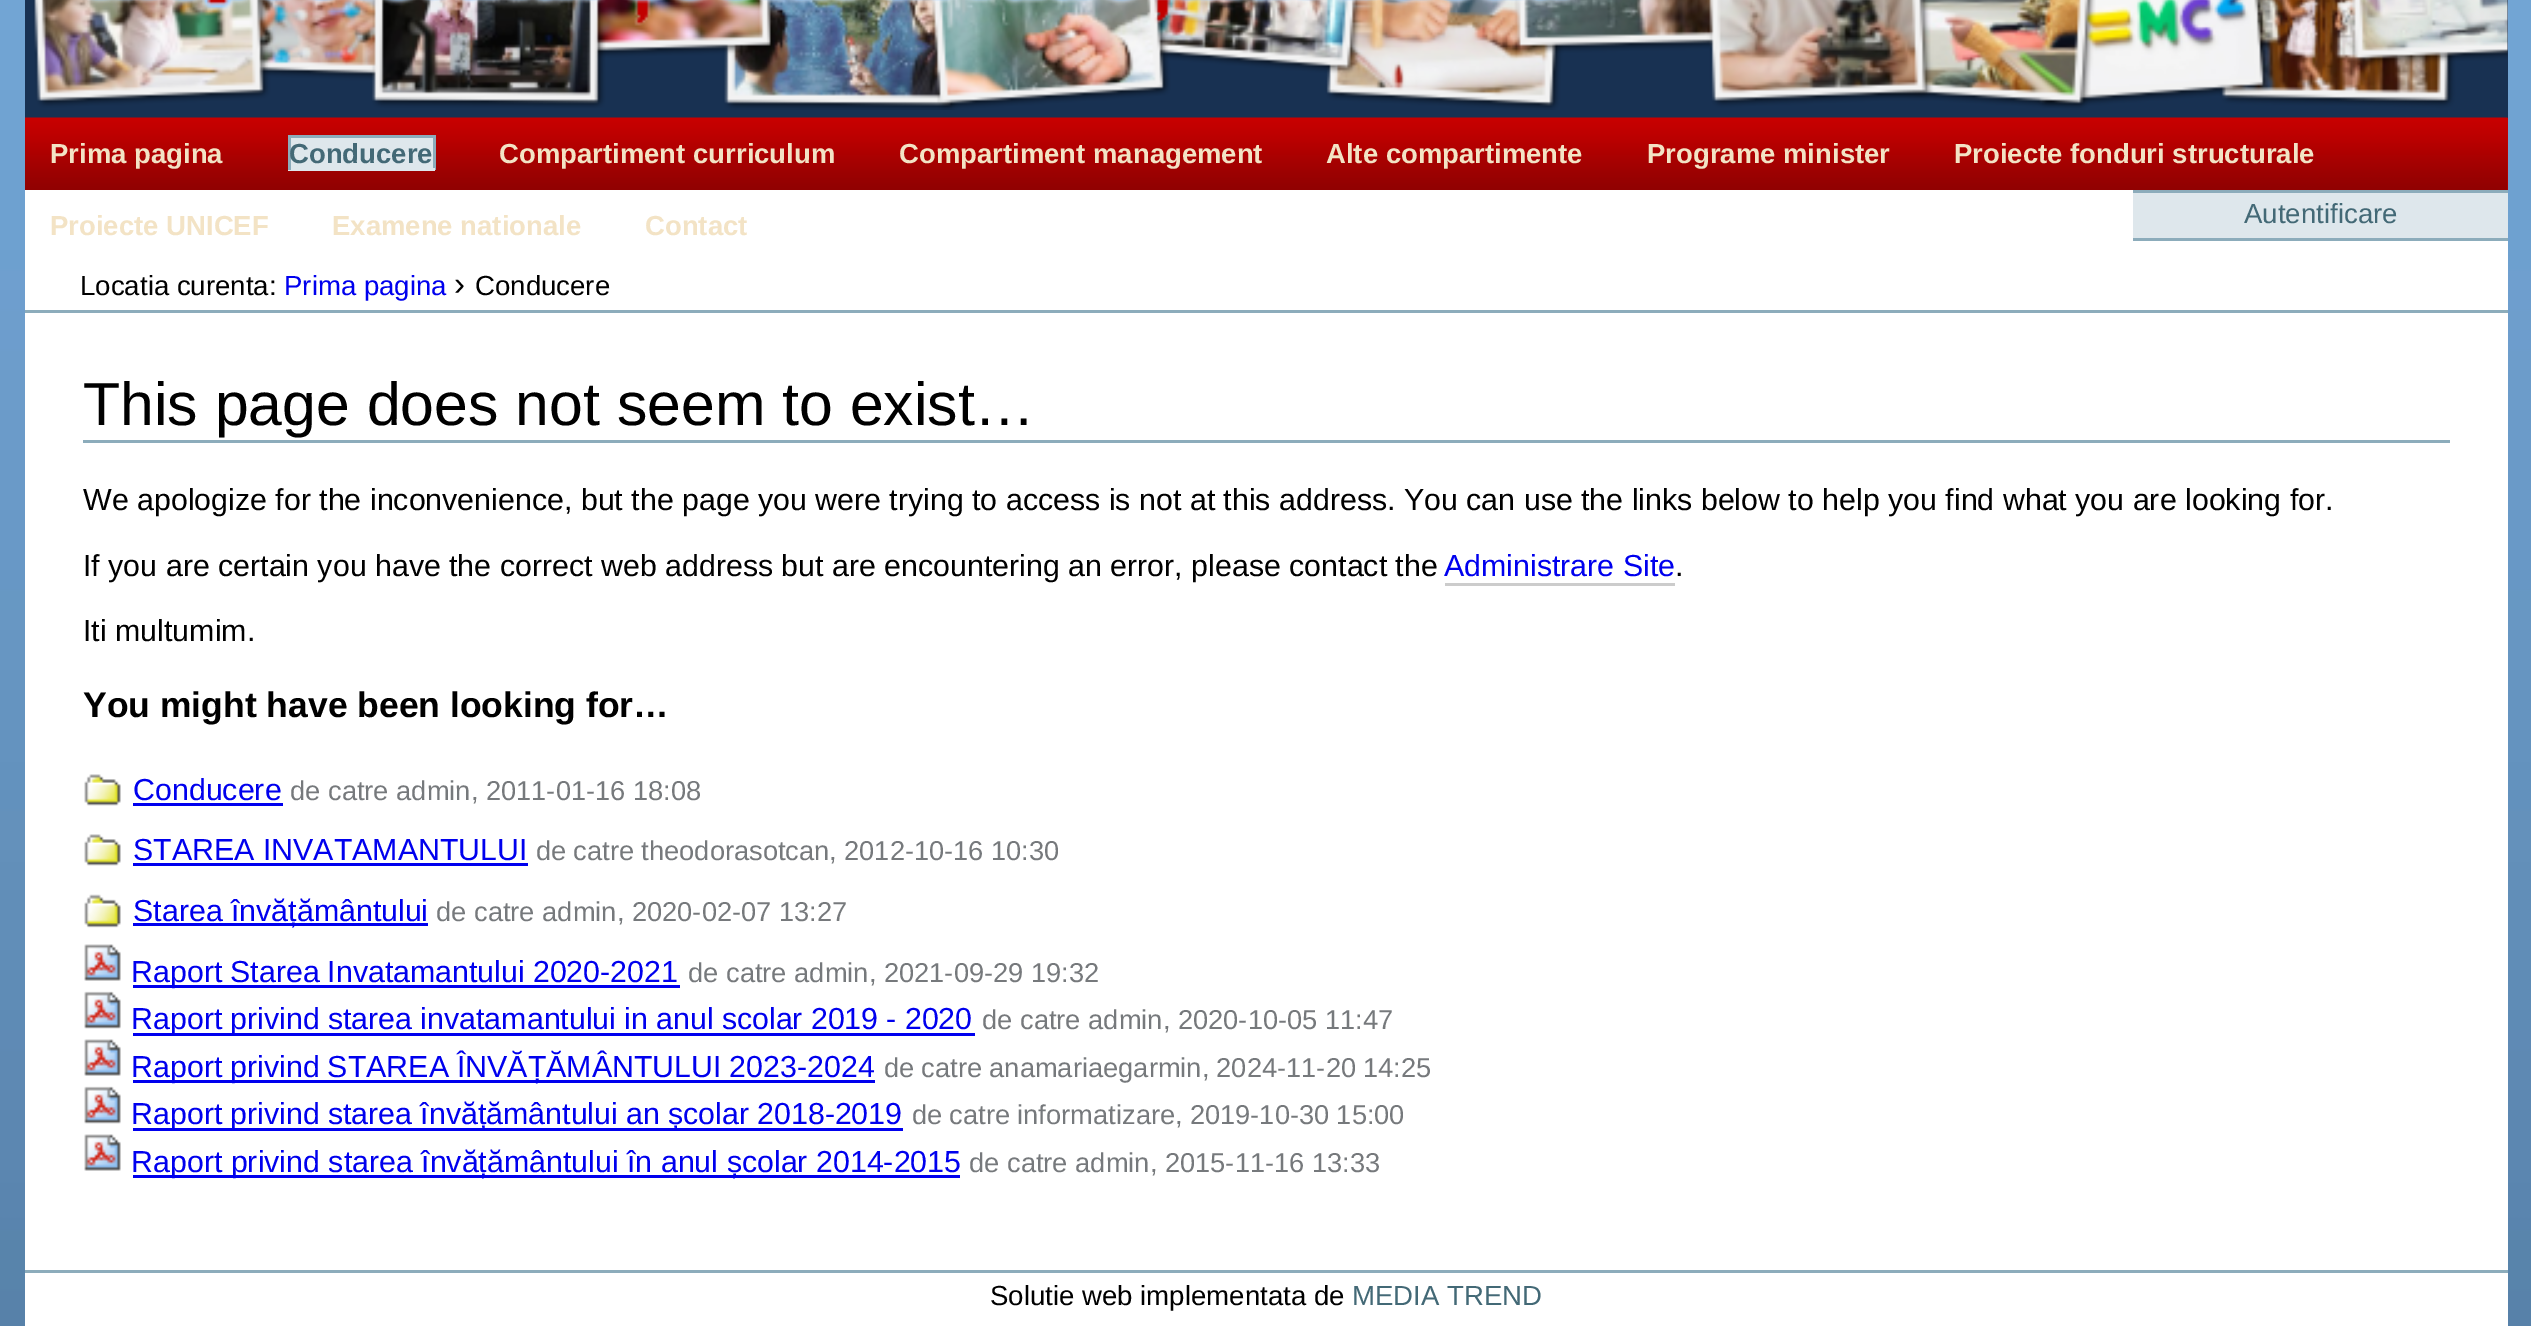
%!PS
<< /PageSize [2531 1326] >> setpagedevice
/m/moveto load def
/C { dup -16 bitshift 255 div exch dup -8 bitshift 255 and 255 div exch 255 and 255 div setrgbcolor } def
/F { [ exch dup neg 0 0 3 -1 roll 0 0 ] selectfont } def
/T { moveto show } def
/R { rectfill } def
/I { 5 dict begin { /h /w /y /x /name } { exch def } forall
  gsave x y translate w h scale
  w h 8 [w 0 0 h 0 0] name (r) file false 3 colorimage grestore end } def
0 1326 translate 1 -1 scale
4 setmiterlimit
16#FFFFFF C
0 0 2531 1326 R
(1.rgb) 0 0 2531 1326 I
25 190 2483 1136 R
16#183152 C
25 0 2483 118 R
(2.rgb) 33 0 2475 110 I
(3.rgb) 87 0 1488 26 I
16#C80000 C
2507 118 1 72 R
(4.rgb) 25 117 2483 73 I
/LiberationSans-Bold 27.5 F
16#F3E3C5 C
(Prima pagina) 50 163 T
16#DEE7EC C
291 138 142 30 R
16#8CACBB C
288 135 147 3 R
433 135 3 35 R
16#DEE7EC C
288 168 147 3 R
16#8CACBB C
288 135 3 35 R
16#436976 C
(Conducere) 289 163 T
16#F3E3C5 C
(Compartiment curriculum) 499 163 T
(Compartiment management) 899 163 T
(Alte compartimente) 1326 163 T
(Programe minister) 1647 163 T
(Proiecte fonduri structurale) 1954 163 T
(Proiecte UNICEF) 50 235 T
(Examene nationale) 332 235 T
(Contact) 645 235 T
16#DEE7EC C
2133 193 375 45 R
16#8CACBB C
2133 190 375 3 R
2133 238 375 3 R
/LiberationSans-Regular 27.6 F
16#436976 C
(Autentificare) 2244 223 T
16#8CACBB C
25 310 2483 3 R
16#000000 C
(Locatia curenta:) 80 295 T
16#0000EE C
(Prima pagina) 284 295 T
/LiberationSans-Regular 33 F
16#000000 C
(›) 454 295 T
/LiberationSans-Regular 27.6 F
(Conducere) 475 295 T
16#8CACBB C
83 440 2367 3 R
/LiberationSans-Regular 60.75 F
16#000000 C
(This page does not seem to exist…) 83 425 T
/LiberationSans-Regular 30.35 F
(We apologize for the inconvenience, but the page you were trying to access is not at this address. You can use the links below to help you find what you are looking for.) 83 510 T
(If you are certain you have the correct web address but are encountering an error, please contact the) 83 576 T
16#0000EE C
(Administrare Site) 1444 576 T
16#CCCCCC C
1445 583 230 3 R
16#000000 C
(.) 1675 576 T
(Iti multumim.) 83 641 T
/LiberationSans-Bold 35.5 F
(You might have been looking for…) 83 717 T
(5.rgb) 84 774 37 32 I
/LiberationSans-Regular 30.35 F
16#0000EE C
(Conducere) 133 800 T
133 803 150 3 R
/LiberationSans-Regular 27.3 F
16#76797C C
(de catre admin, 2011-01-16 18:08) 290 800 T
(5.rgb) 84 834 37 32 I
/LiberationSans-Regular 30.35 F
16#0000EE C
(STAREA INVATAMANTULUI) 133 860 T
133 863 395 3 R
/LiberationSans-Regular 27.3 F
16#76797C C
536 860 m -.5 0 32 (de catre theodorasotcan, 2012-10-16 10:30) widthshow
(6.rgb) 84 894 37 34 I
16#0000EE C
133 923 295 3 R
/LiberationSans-Regular 30.35 F
(Starea învățământului) 133 921 T
/LiberationSans-Regular 27.3 F
16#76797C C
(de catre admin, 2020-02-07 13:27) 436 921 T
(7.rgb) 84 944 37 37 I
16#0000EE C
133 985 547 3 R
/LiberationSans-Regular 30.35 F
131 982 m -.5 0 32 (Raport Starea Invatamantului 2020-2021) widthshow
/LiberationSans-Regular 27.3 F
16#76797C C
(de catre admin, 2021-09-29 19:32) 688 982 T
(8.rgb) 84 991 37 38 I
16#0000EE C
133 1033 842 3 R
/LiberationSans-Regular 30.35 F
131 1029 m -.25 0 32 (Raport privind starea invatamantului in anul scolar 2019 - 2020) widthshow
/LiberationSans-Regular 27.3 F
16#76797C C
(de catre admin, 2020-10-05 11:47) 982 1029 T
(7.rgb) 84 1039 37 37 I
16#0000EE C
133 1080 742 3 R
/LiberationSans-Regular 30.35 F
131 1077 m -.5 0 32 (Raport privind STAREA ÎNVĂȚĂMÂNTULUI 2023-2024) widthshow
/LiberationSans-Regular 27.3 F
16#76797C C
884 1077 m -.5 0 32 (de catre anamariaegarmin, 2024-11-20 14:25) widthshow
(9.rgb) 84 1086 37 38 I
16#0000EE C
133 1128 770 3 R
/LiberationSans-Regular 30.35 F
131 1124 m -.25 0 32 (Raport privind starea învățământului an școlar 2018-2019) widthshow
/LiberationSans-Regular 27.3 F
16#76797C C
912 1124 m -.5 0 32 (de catre informatizare, 2019-10-30 15:00) widthshow
(7.rgb) 84 1134 37 37 I
16#0000EE C
133 1175 827 3 R
/LiberationSans-Regular 30.35 F
(Raport privind starea învățământului) 131 1172 T
(în anul școlar 2014-2015) 627 1172 T
/LiberationSans-Regular 27.3 F
16#76797C C
(de catre admin, 2015-11-16 13:33) 969 1172 T
16#8CACBB C
25 1270 2483 3 R
/LiberationSans-Regular 27.6 F
16#000000 C
(Solutie web implementata de) 990 1305 T
16#436976 C
(MEDIA TREND) 1352 1305 T
showpage
